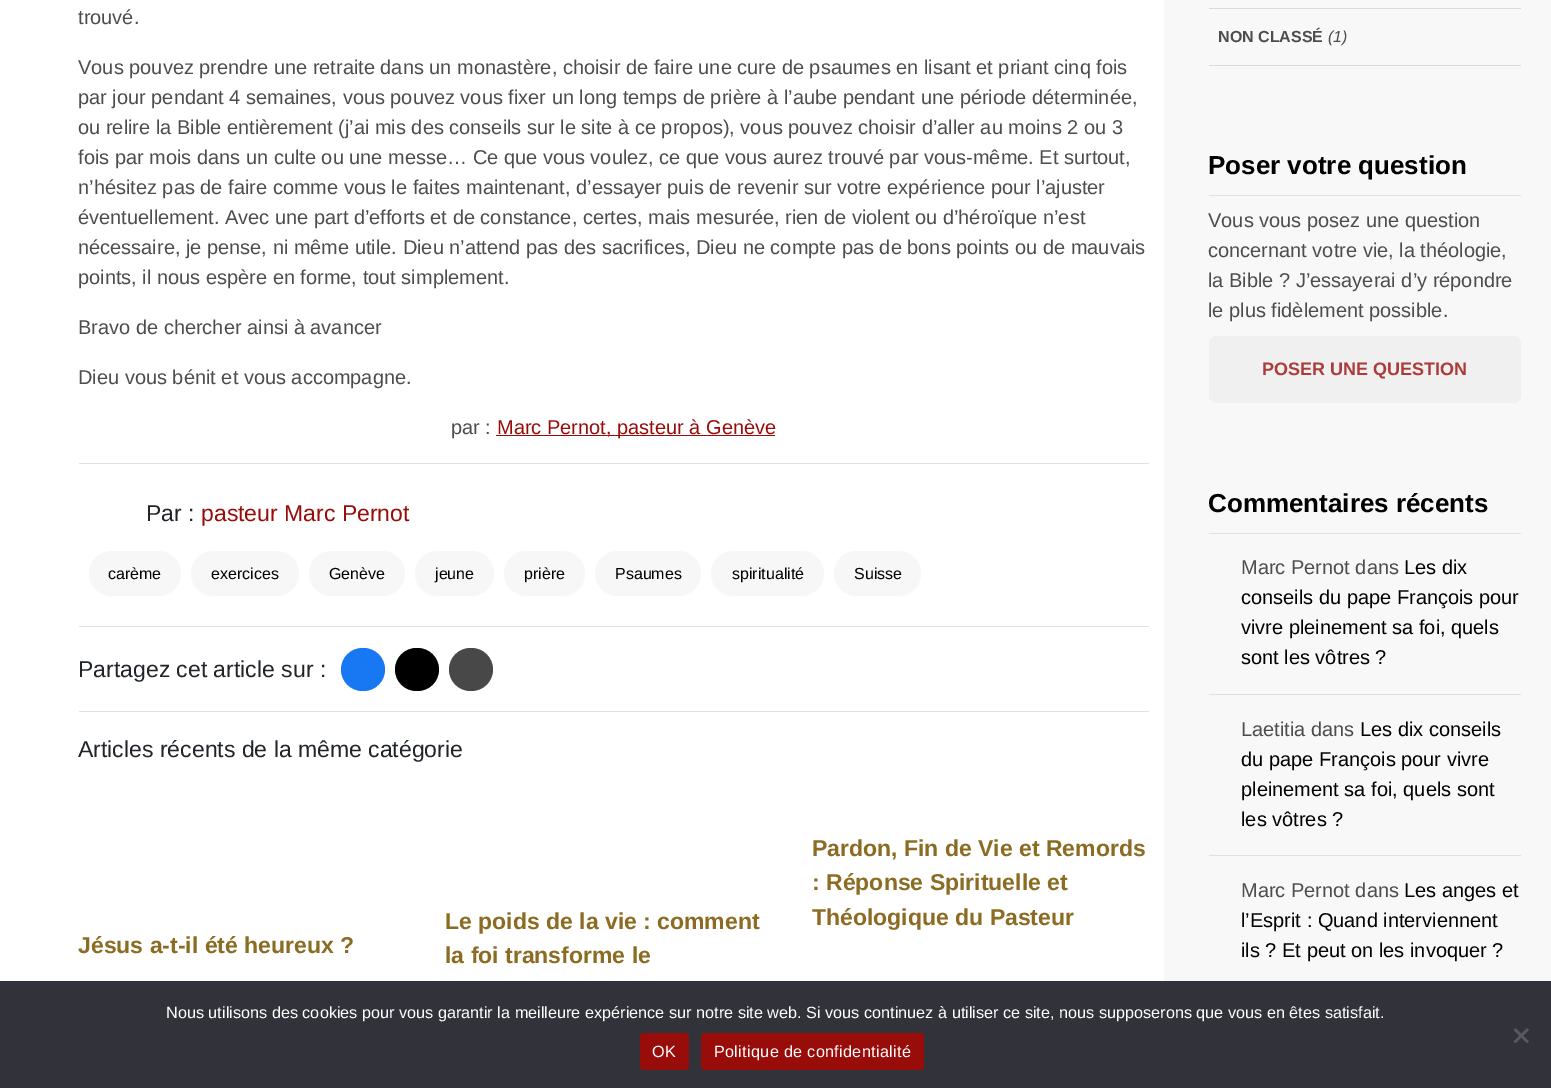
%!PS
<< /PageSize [1551 1088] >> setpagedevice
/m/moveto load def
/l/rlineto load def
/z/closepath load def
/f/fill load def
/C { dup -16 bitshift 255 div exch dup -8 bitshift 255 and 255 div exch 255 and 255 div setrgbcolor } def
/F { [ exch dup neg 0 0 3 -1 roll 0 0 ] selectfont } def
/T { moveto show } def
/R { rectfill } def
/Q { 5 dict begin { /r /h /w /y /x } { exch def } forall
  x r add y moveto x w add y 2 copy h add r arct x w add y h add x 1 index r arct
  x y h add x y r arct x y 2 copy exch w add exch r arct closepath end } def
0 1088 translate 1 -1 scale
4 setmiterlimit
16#FFFFFF C
0 0 1551 1088 R
/LiberationSans-Regular 20 F
16#4D4D4D C
(trouvé.) 78 24 T
(Vous pouvez prendre une retraite dans un monastère, choisir de faire une cure de psaumes en lisant et priant cinq fois) 78 74 T
(par jour pendant 4 semaines, vous pouvez vous fixer un long temps de prière à l’aube pendant une période déterminée,) 78 104 T
(ou relire la Bible entièrement \(j’ai mis des conseils sur le site à ce propos\), vous pouvez choisir d’aller au moins 2 ou 3) 78 134 T
(fois par mois dans un culte ou une messe… Ce que vous voulez, ce que vous aurez trouvé par vous-même. Et surtout,) 78 164 T
(n’hésitez pas de faire comme vous le faites maintenant, d’essayer puis de revenir sur votre expérience pour l’ajuster) 78 194 T
(éventuellement. Avec une part d’efforts et de constance, certes, mais mesurée, rien de violent ou d’héroïque n’est) 78 224 T
(nécessaire, je pense, ni même utile. Dieu n’attend pas des sacrifices, Dieu ne compte pas de bons points ou de mauvais) 78 254 T
(points, il nous espère en forme, tout simplement.) 78 284 T
(Bravo de chercher ainsi à avancer) 78 334 T
(Dieu vous bénit et vous accompagne.) 78 384 T
(par :) 451 434 T
16#980D0A C
496 435 279 1 R
(Marc Pernot, pasteur à Genève) 497 434 T
16#DEE2E6 C
79 463 1070 1 R
/LiberationSans-Regular 23 F
16#212529 C
(Par :) 146 521 T
16#980D0A C
(pasteur Marc Pernot) 201 521 T
16#F7F7F7 C
89 551 92 45 22.5 Q f
/LiberationSans-Regular 16 F
16#000000 C
(carème) 108 579 T
16#F7F7F7 C
191 551 108 45 22.5 Q f
16#000000 C
(exercices) 211 579 T
16#F7F7F7 C
309 551 96 45 22.5 Q f
16#000000 C
(Genève) 329 579 T
16#F7F7F7 C
415 551 79 45 22.5 Q f
16#000000 C
(jeune) 435 579 T
16#F7F7F7 C
504 551 81 45 22.5 Q f
16#000000 C
(prière) 524 579 T
16#F7F7F7 C
595 551 106 45 22.5 Q f
16#000000 C
(Psaumes) 615 579 T
16#F7F7F7 C
711 551 113 45 22.5 Q f
16#000000 C
(spiritualité) 732 579 T
16#F7F7F7 C
834 551 87 45 22.5 Q f
16#000000 C
(Suisse) 854 579 T
16#DEE2E6 C
79 626 1070 1 R
/LiberationSans-Regular 23 F
16#212529 C
(Partagez cet article sur :) 78 677 T
16#1877F2 C
341 648 44 43 21.5 Q f
16#000000 C
395 648 44 43 21.5 Q f
16#484848 C
449 648 44 43 21.5 Q f
16#DEE2E6 C
79 711 1070 1 R
16#212529 C
(Articles récents de la même catégorie) 78 757 T
/LiberationSans-Bold 23 F
16#8B6C22 C
(Pardon, Fin de Vie et Remords) 812 856 T
(: Réponse Spirituelle et) 812 890 T
(Théologique du Pasteur) 812 925 T
(Jésus a-t-il été heureux ?) 78 953 T
(Le poids de la vie : comment) 445 929 T
(la foi transforme le) 445 963 T
16#F8F8F8 C
1164 0 387 981 R
16#D9D9D9 C
1209 8 312 1 R
1209 65 312 1 R
/LiberationSans-Bold 16 F
16#4D4D4D C
(NON CLASSÉ) 1218 42 T
/LiberationSans-Italic 16 F
(\(1\)) 1328 42 T
16#DEE2E6 C
1209 195 312 1 R
/LiberationSans-Bold 26 F
16#000000 C
(Poser votre question) 1208 174 T
/LiberationSans-Regular 20 F
16#4D4D4D C
(Vous vous posez une question) 1208 227 T
(concernant votre vie, la théologie,) 1208 257 T
(la Bible ? J’essayerai d’y répondre) 1208 287 T
(le plus fidèlement possible.) 1208 317 T
16#F0F0F0 C
1209 336 312 67 8 Q f
/LiberationSans-Bold 18 F
16#AB3C3A C
(POSER UNE QUESTION) 1262 375 T
16#DEE2E6 C
1209 533 312 1 R
/LiberationSans-Bold 26 F
16#000000 C
(Commentaires récents) 1208 512 T
16#DEE2E6 C
1209 694 312 1 R
/LiberationSans-Regular 20 F
16#4D4D4D C
(Marc Pernot dans) 1241 574 T
16#000000 C
(Les dix) 1404 574 T
(conseils du pape François pour) 1241 604 T
(vivre pleinement sa foi, quels) 1241 634 T
(sont les vôtres ?) 1241 664 T
16#DEE2E6 C
1209 855 312 1 R
16#4D4D4D C
(Laetitia dans) 1241 736 T
16#000000 C
(Les dix conseils) 1360 736 T
(du pape François pour vivre) 1241 766 T
(pleinement sa foi, quels sont) 1241 796 T
(les vôtres ?) 1241 826 T
16#4D4D4D C
(Marc Pernot dans) 1241 897 T
16#000000 C
(Les anges et) 1404 897 T
(l’Esprit : Quand interviennent) 1241 927 T
(ils ? Et peut on les invoquer ?) 1241 957 T
16#32323A C
0 981 1551 107 R
/LiberationSans-Regular 16.25 F
16#FFFFFF C
(Nous utilisons des cookies pour vous garantir la meilleure expérience sur notre site web. Si vous continuez à utiliser ce site, nous supposerons que vous en êtes satisfait.) 166 1018 T
16#59595D C
1527 1028 m 2 2 l -13.5 13 l -2 -1.5 l z f
1513.5 1030 m 2 -2 l 13.5 13.5 l -2 1.5 l z f
16#980D0A C
640 1033 49 37 4 Q f
16#FFFFFF C
652 1057 m .3 0 (OK) ashow
16#980D0A C
701 1033 223 37 4 Q f
16#FFFFFF C
714 1057 m .3 0 (Politique de confidentialité) ashow
showpage
